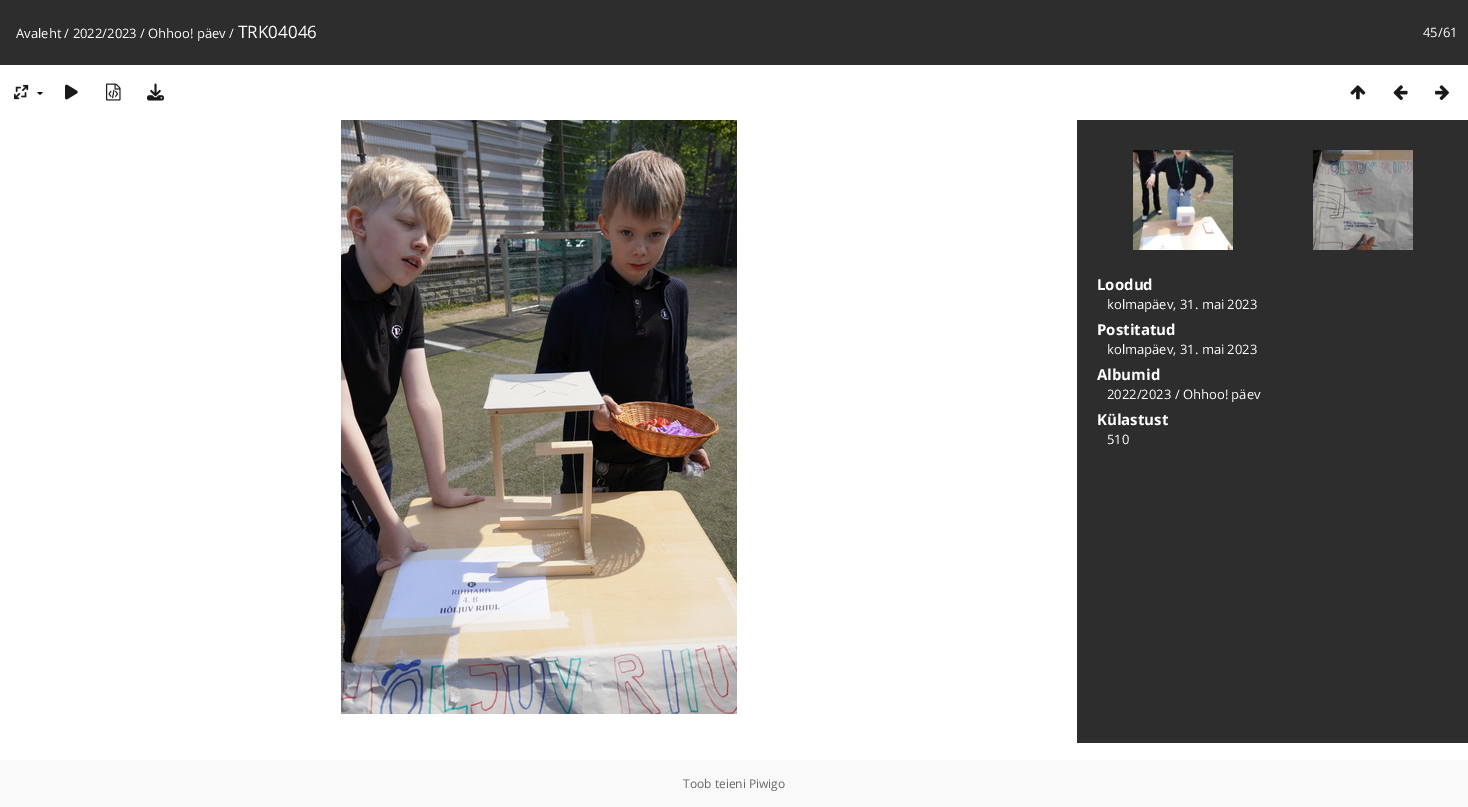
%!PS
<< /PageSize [1468 807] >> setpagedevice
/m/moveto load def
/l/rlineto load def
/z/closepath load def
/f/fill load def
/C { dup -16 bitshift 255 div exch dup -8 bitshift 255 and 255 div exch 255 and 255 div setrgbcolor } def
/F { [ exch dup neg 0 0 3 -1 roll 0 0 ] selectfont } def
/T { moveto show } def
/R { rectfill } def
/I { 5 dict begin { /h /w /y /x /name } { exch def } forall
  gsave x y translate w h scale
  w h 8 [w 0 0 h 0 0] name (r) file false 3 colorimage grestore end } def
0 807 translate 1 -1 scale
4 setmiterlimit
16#FFFFFF C
0 0 1468 807 R
16#2D2D2D C
0 0 1468 65 R
/OpenSans-Regular 13 F
16#FFFFFF C
(Avaleht / 2022/2023 / Ohhoo! päev /) 16 38 T
/OpenSans-Regular 17 F
(TRK04046) 238 38 T
/OpenSans-Regular 13 F
(45/61) 1423 37 T
(1.rgb) 14 84 15 16 I
16#000000 C
37 92 m 6 0 l -3 3 l z f
(2.rgb) 65 84 13 16 I
(3.rgb) 106 83 15 18 I
(4.rgb) 147 83 17 18 I
(5.rgb) 1350 85 16 15 I
(6.rgb) 1393 85 15 15 I
(7.rgb) 1435 85 14 15 I
(8.rgb) 341 120 396 594 I
16#2D2D2D C
1077 120 391 623 R
(9.rgb) 1133 150 100 100 I
(10.rgb) 1313 150 100 100 I
/OpenSans-Bold 15 F
16#FFFFFF C
(Loodud) 1097 290 T
/OpenSans-Regular 13 F
(kolmapäev, 31. mai 2023) 1107 309 T
/OpenSans-Bold 15 F
(Postitatud) 1097 335 T
/OpenSans-Regular 13 F
(kolmapäev, 31. mai 2023) 1107 354 T
/OpenSans-Bold 15 F
(Albumid) 1097 380 T
/OpenSans-Regular 13 F
(2022/2023 / Ohhoo! päev) 1107 399 T
/OpenSans-Bold 15 F
(Külastust) 1097 425 T
/OpenSans-Regular 13 F
(510) 1107 444 T
16#F9F9F9 C
0 760 1468 47 R
/OpenSans-Regular 12 F
16#666666 C
(Toob teieni Piwigo) 683 788 T
showpage
